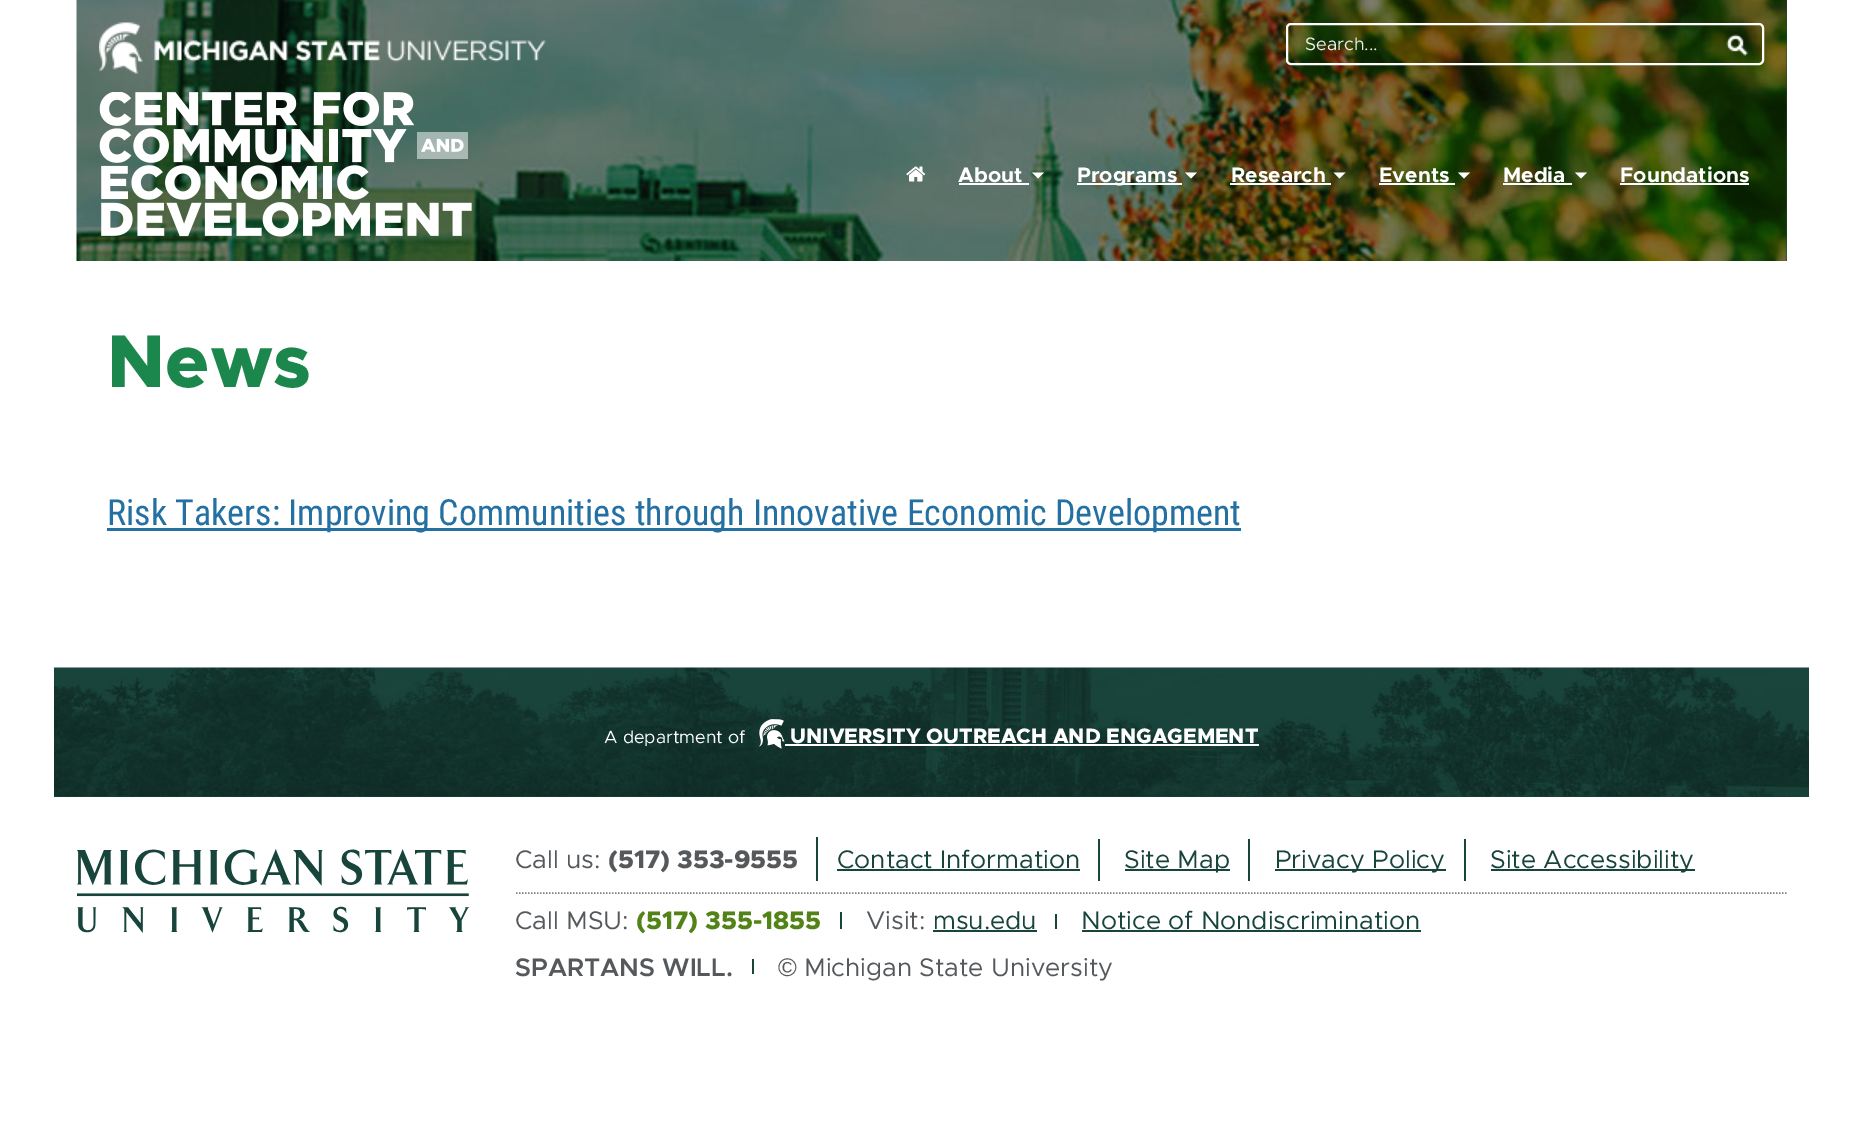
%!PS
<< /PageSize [1863 1121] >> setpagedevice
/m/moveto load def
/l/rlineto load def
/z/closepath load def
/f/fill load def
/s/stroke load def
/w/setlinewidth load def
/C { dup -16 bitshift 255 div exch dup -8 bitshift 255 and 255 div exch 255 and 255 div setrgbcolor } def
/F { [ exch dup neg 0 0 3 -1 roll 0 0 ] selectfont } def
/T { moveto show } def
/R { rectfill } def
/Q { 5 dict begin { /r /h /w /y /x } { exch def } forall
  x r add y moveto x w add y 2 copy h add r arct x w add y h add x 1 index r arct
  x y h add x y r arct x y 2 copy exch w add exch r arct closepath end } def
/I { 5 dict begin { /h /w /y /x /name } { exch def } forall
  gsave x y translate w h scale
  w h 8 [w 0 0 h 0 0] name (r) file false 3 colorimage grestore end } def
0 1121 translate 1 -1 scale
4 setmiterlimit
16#FFFFFF C
0 0 1863 1121 R
16#18453B C
1786 0 1 261 R
(1.rgb) 76 0 1711 261 I
(2.rgb) 99 22 447 52 I
16#FFFFFF C
2 w
1287 24 476 40 4 Q s
/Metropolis-Regular 18 F
16#ECEEEF C
(Search...) 1305 50 T
(3.rgb) 1726 34 22 22 I
(4.rgb) 99 92 373 145 I
(5.rgb) 906 166 20 16 I
/Metropolis-Bold 21 F
16#FFFFFF C
(About) 958 182 T
959 183 70 2 R
1032 172.5 m 12 0 l -6 6 l z f
1077 183 105 2 R
(Programs) 1077 182 T
1185 172.5 m 12 0 l -6 6 l z f
(Research) 1231 182 T
1230 183 101 2 R
1333.5 172.5 m 12 0 l -6 6 l z f
(Events) 1379 182 T
1379 183 76 2 R
1458 172.5 m 12 0 l -6 6 l z f
(Media) 1503 182 T
1503 183 69 2 R
1575 172.5 m 12 0 l -6 6 l z f
(Foundations) 1620 182 T
1620 183 129 2 R
/Metropolis-ExtraBold 75 F
16#1C874C C
(News) 107 387 T
16#2470A3 C
107 528 1134 3 R
/RobotoCondensed-Regular 36 F
(Risk Takers: Improving Communities through Innovative Economic Development) 107 525 T
16#18453B C
54 796 1755 1 R
(6.rgb) 54 667 1755 130 I
/Metropolis-Regular 17.75 F
16#FFFFFF C
(A department of) 604 743 T
(7.rgb) 759 719 26 30 I
/Metropolis-ExtraBold 21 F
(UNIVERSITY OUTREACH AND ENGAGEMENT) 790 743 T
785 744 474 2 R
(8.rgb) 77 849 393 84 I
16#808080 C
1.5 w
[1.5 1.5] 0 setdash
516 893 m 1270.5 0 l s
16#18453B C
816 837 2 44 R
/Metropolis-Regular 25.5 F
16#55595C C
(Call us:) 515 868 T
/Metropolis-ExtraBold 25.5 F
(\(517\) 353-9555) 608 868 T
16#18453B C
1098 839 2 42 R
/Metropolis-Regular 25.5 F
(Contact Information) 837 868 T
837 869 243 2 R
1248 839 2 42 R
1125 869 105 2 R
(Site Map) 1124 868 T
1464 839 2 42 R
1275 869 171 2 R
(Privacy Policy) 1275 868 T
1491 869 204 2 R
(Site Accessibility) 1490 868 T
840 912 2 17 R
16#55595C C
(Call MSU:) 515 929 T
/Metropolis-ExtraBold 25.5 F
16#528316 C
(\(517\) 355-1855) 636 929 T
16#18453B C
1055 914 2 15 R
/Metropolis-Regular 25.5 F
16#55595C C
(Visit:) 866 929 T
16#18453B C
(msu.edu) 933 929 T
933 930 104 2 R
(Notice of Nondiscrimination) 1081 929 T
1082 930 339 2 R
752 959 2 15 R
/Metropolis-SemiBold 25.5 F
16#55595C C
(SPARTANS WILL.) 515 976 T
/LiberationSans-Regular 25.5 F
(©) 778 976 T
/Metropolis-Regular 25.5 F
(Michigan State University) 804 976 T
showpage
